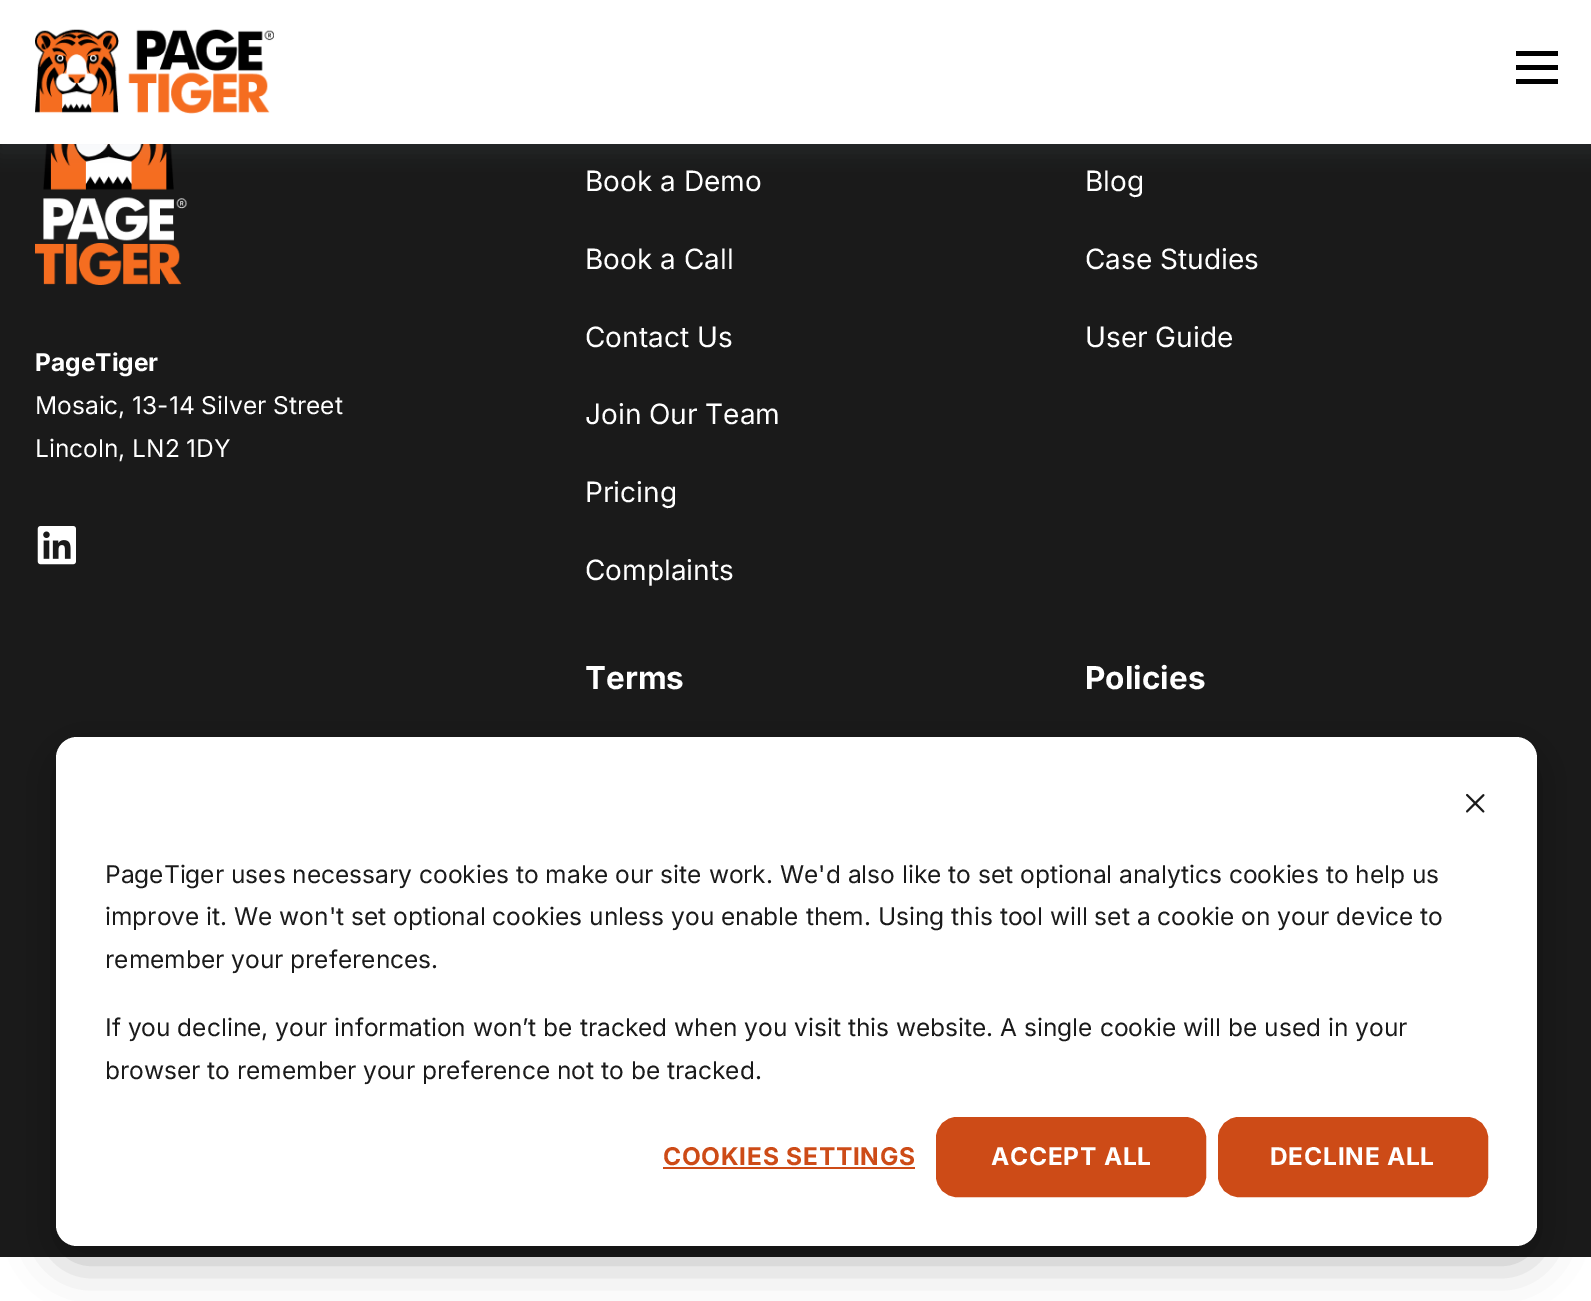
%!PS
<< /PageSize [1591 1301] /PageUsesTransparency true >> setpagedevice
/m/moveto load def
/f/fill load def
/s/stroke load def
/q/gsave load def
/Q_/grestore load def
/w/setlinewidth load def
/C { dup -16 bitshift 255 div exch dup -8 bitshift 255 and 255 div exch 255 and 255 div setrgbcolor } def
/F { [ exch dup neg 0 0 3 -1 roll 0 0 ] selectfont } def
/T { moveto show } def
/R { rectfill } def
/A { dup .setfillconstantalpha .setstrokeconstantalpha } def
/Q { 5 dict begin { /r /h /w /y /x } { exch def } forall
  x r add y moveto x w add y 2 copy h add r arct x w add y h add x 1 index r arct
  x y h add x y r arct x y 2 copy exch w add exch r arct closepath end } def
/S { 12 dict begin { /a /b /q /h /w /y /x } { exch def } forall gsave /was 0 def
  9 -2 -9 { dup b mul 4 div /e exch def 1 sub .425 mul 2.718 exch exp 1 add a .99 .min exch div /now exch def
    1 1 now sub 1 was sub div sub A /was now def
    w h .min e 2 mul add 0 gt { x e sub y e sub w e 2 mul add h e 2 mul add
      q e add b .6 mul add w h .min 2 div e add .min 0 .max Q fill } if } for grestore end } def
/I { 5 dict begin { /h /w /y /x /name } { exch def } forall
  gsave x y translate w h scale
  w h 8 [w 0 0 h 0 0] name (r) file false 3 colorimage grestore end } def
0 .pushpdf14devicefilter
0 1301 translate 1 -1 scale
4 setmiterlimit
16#1A1A1A C
0 0 1591 1301 R
(2.rgb) 35 144 153 141 I
16#9AA1B1 C
0 9 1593 143 0 9 .1 S
16#FFFFFF C
0 0 1591 144 R
(1.rgb) 35 29 239 85 I
16#000000 C
1516 65 42 5 R
1516 51 42 5 R
1516 79 42 5 R
/Inter-Bold 24.5 F
16#FFFFFF C
(PageTiger) 35 371 T
/Inter-Regular 24.5 F
(Mosaic, 13-14 Silver Street) 35 414 T
(Lincoln, LN2 1DY) 35 457 T
(3.rgb) 37 526 39 39 I
/Inter-Regular 28 F
(Book a Demo) 585 191 T
(Book a Call) 585 269 T
(Contact Us) 585 347 T
(Join Our Team) 585 424 T
(Pricing) 585 502 T
(Complaints) 585 580 T
(Blog) 1085 191 T
(Case Studies) 1085 269 T
(User Guide) 1085 347 T
/Inter-Bold 31.5 F
(Terms) 585 689 T
(Policies) 1085 689 T
0 1257 1591 44 R
16#000000 C
56 751 1481 509 21 24.5 .28 S
16#FFFFFF C
56 737 1481 509 21 Q f
(4.rgb) 1466 793 19 20 I
/Inter-Regular 24.5 F
16#1A1A1A C
(PageTiger uses necessary cookies to make our site work. We'd also like to set optional analytics cookies to help us) 105 883 T
(improve it. We won't set optional cookies unless you enable them. Using this tool will set a cookie on your device to) 105 925 T
(remember your preferences.) 105 968 T
(If you decline, your information won’t be tracked when you visit this website. A single cookie will be used in your) 105 1036 T
(browser to remember your preference not to be tracked.) 105 1079 T
/Inter-Bold 24.5 F
16#CD4B17 C
663 1165 m .75 0 (COOKIES SETTINGS) ashow
663 1167 252 2 R
937 1118 268 78 20 Q q f Q_
2 w
s
16#FFFFFF C
991 1165 m .75 0 (ACCEPT ALL) ashow
16#CD4B17 C
1219 1118 268 78 20 Q q f Q_
s
16#FFFFFF C
1270 1165 m .75 0 (DECLINE ALL) ashow
.poppdf14devicefilter showpage
